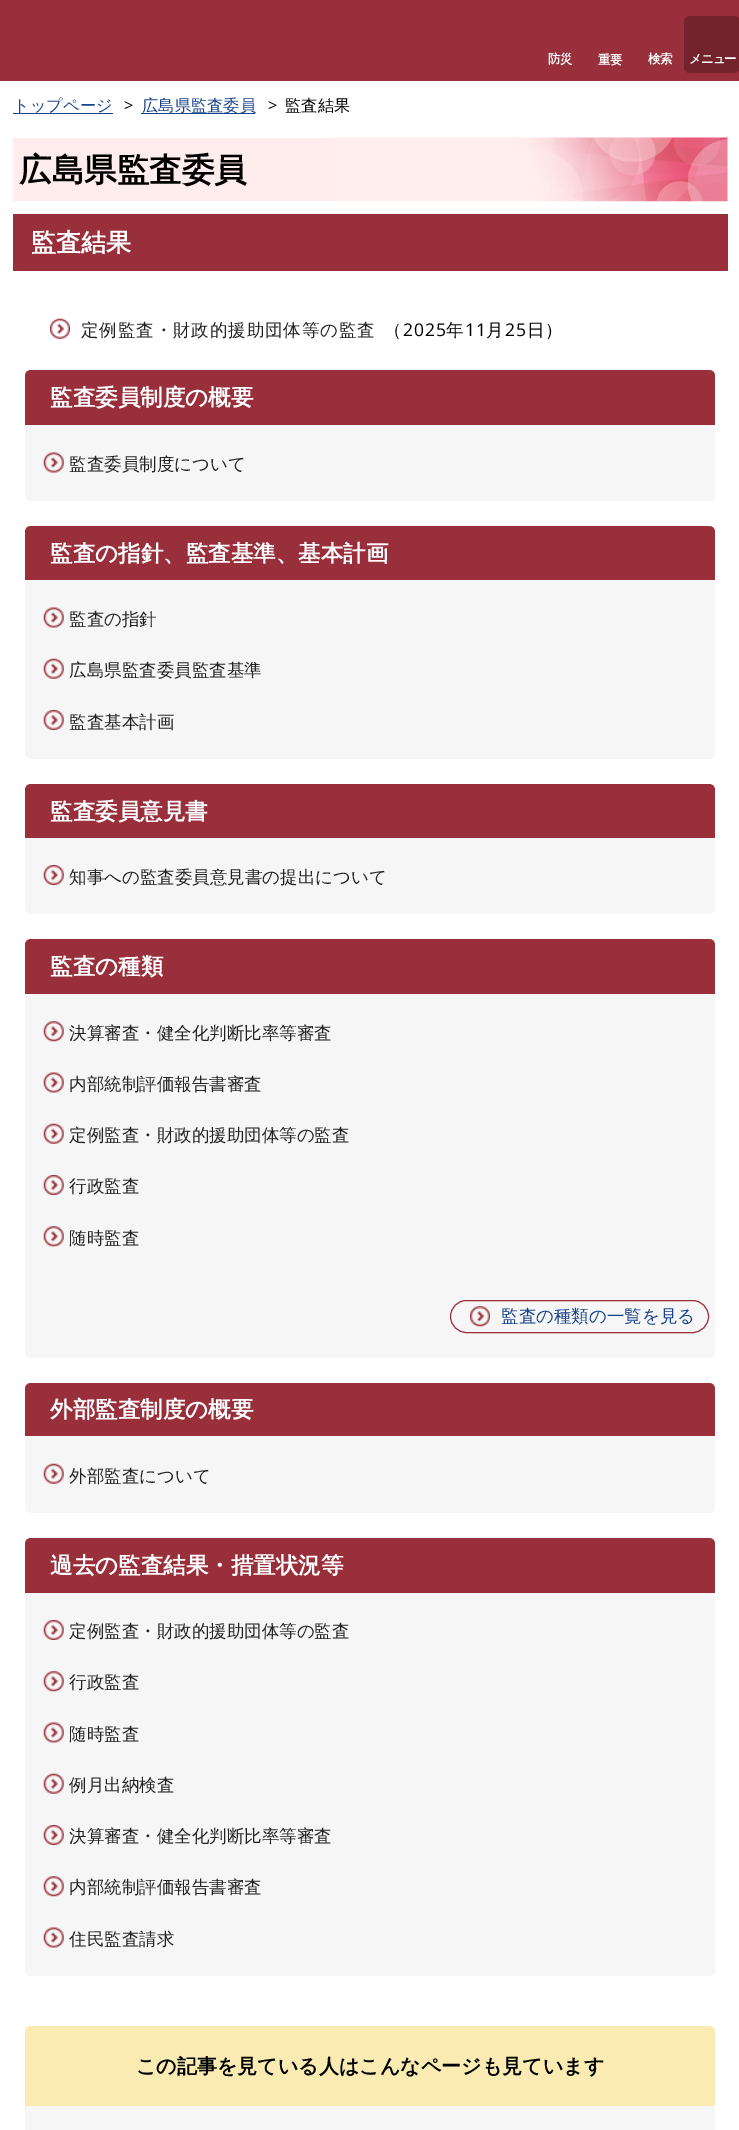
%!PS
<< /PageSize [739 2130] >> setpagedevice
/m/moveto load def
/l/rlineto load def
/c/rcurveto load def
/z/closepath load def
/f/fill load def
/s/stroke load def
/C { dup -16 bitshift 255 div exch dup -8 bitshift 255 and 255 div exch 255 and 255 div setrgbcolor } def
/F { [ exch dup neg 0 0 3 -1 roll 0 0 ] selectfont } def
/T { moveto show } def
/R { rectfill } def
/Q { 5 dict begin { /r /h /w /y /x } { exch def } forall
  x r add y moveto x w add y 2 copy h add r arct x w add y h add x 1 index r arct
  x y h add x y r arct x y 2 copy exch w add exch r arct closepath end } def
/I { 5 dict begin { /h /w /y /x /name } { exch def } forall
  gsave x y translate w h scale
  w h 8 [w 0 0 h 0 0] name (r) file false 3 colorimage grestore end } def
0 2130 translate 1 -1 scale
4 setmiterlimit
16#FFFFFF C
0 0 739 2130 R
16#992F3B C
0 0 739 81 R
/WenQuanYiZenHei-Bold 12.5 F
16#FFFFFF C
548 63 m -1 0 (防災) ashow
598 64 m -1 0 (重要) ashow
648 63 m -1 0 (検索) ashow
16#73232C C
684 16 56 57 6 Q f
16#FFFFFF C
689 63 m -1 0 (メニュー) ashow
/WenQuanYiZenHei-Medium 16.25 F
16#16428B C
(トップページ) 13 111 T
13 113 100 1 R
/OpenSans-Regular 16.25 F
16#000000 C
(>) 124 111 T
16#16428B C
141 113 114 1 R
/WenQuanYiZenHei-Medium 16.25 F
(広島県監査委員) 142 111 T
/OpenSans-Regular 16.25 F
16#000000 C
(>) 268 111 T
/WenQuanYiZenHei-Medium 16.25 F
(監査結果) 285 111 T
16#FFEDED C
13 138 715 63 R
(1.rgb) 332 137 396 65 I
/WenQuanYiZenHei-Bold 32.5 F
16#000000 C
(広島県監査委員) 19 181 T
16#992F3B C
13 214 715 57 R
/WenQuanYiZenHei-Bold 25 F
16#FFFFFF C
(監査結果) 31 251 T
(2.rgb) 50 318 20 21 I
/WenQuanYiZenHei-Medium 17.5 F
16#222222 C
81 336 m .9 0 (定例監査・財政的援助団体等の監査) ashow
16#000000 C
384 336 m .9 0 (（) ashow
/OpenSans-Regular 17.5 F
403 336 m .9 0 (2025) ashow
/WenQuanYiZenHei-Medium 17.5 F
446 336 m .9 0 (年) ashow
/OpenSans-Regular 17.5 F
465 336 m .9 0 (11) ashow
/WenQuanYiZenHei-Medium 17.5 F
486 336 m .9 0 (月) ashow
/OpenSans-Regular 17.5 F
505 336 m .9 0 (25) ashow
/WenQuanYiZenHei-Medium 17.5 F
527 336 m .9 0 (日）) ashow
16#F6F6F6 C
25 370 690 131 6 Q f
16#992F3B C
31 370 m 678 0 l 3.5 0 6 2.5 6 6 c 0 49 l -690 0 l 0 -49 l 0 -3.5 2.5 -6 6 -6 c z f
/WenQuanYiZenHei-Bold 22.5 F
16#FFFFFF C
(監査委員制度の概要) 50 405 T
(3.rgb) 43 452 21 21 I
/WenQuanYiZenHei-Medium 17.5 F
16#222222 C
(監査委員制度について) 69 470 T
16#F6F6F6 C
25 526 690 233 6 Q f
16#992F3B C
31 526 m 678 0 l 3.5 0 6 2.5 6 6 c 0 48 l -690 0 l 0 -48 l 0 -3.5 2.5 -6 6 -6 c z f
/WenQuanYiZenHei-Bold 22.5 F
16#FFFFFF C
(監査の指針、監査基準、基本計画) 50 561 T
(3.rgb) 43 607 21 21 I
/WenQuanYiZenHei-Medium 17.5 F
16#222222 C
(監査の指針) 69 625 T
(4.rgb) 43 658 21 21 I
(広島県監査委員監査基準) 69 676 T
(5.rgb) 43 710 21 20 I
(監査基本計画) 69 728 T
16#F6F6F6 C
25 784 690 130 6 Q f
16#992F3B C
31 784 m 678 0 l 3.5 0 6 2.5 6 6 c 0 48 l -690 0 l 0 -48 l 0 -3.5 2.5 -6 6 -6 c z f
/WenQuanYiZenHei-Bold 22.5 F
16#FFFFFF C
(監査委員意見書) 50 819 T
(5.rgb) 43 865 21 20 I
/WenQuanYiZenHei-Medium 17.5 F
16#222222 C
(知事への監査委員意見書の提出について) 69 883 T
16#F6F6F6 C
25 939 690 419 6 Q f
16#992F3B C
31 939 m 678 0 l 3.5 0 6 2.5 6 6 c 0 49 l -690 0 l 0 -49 l 0 -3.5 2.5 -6 6 -6 c z f
/WenQuanYiZenHei-Bold 22.5 F
16#FFFFFF C
(監査の種類) 50 974 T
(6.rgb) 43 1021 21 21 I
/WenQuanYiZenHei-Medium 17.5 F
16#222222 C
(決算審査・健全化判断比率等審査) 69 1039 T
(3.rgb) 43 1072 21 21 I
(内部統制評価報告書審査) 69 1090 T
(4.rgb) 43 1123 21 21 I
(定例監査・財政的援助団体等の監査) 69 1141 T
(7.rgb) 43 1175 21 20 I
(行政監査) 69 1192 T
(8.rgb) 43 1226 21 21 I
(随時監査) 69 1244 T
16#992F3B C
450.5 1300.5 258 32 16 Q s
(9.rgb) 470 1306 20 21 I
16#16428B C
(監査の種類の一覧を見る) 501 1322 T
16#F6F6F6 C
25 1383 690 130 6 Q f
16#992F3B C
31 1383 m 678 0 l 3.5 0 6 2.5 6 6 c 0 47 l -690 0 l 0 -47 l 0 -3.5 2.5 -6 6 -6 c z f
/WenQuanYiZenHei-Bold 22.5 F
16#FFFFFF C
(外部監査制度の概要) 50 1417 T
(4.rgb) 43 1463 21 21 I
/WenQuanYiZenHei-Medium 17.5 F
16#222222 C
(外部監査について) 69 1482 T
16#F6F6F6 C
25 1538 690 438 6 Q f
16#992F3B C
31 1538 m 678 0 l 3.5 0 6 2.5 6 6 c 0 49 l -690 0 l 0 -49 l 0 -3.5 2.5 -6 6 -6 c z f
/WenQuanYiZenHei-Bold 22.5 F
16#FFFFFF C
(過去の監査結果・措置状況等) 50 1573 T
(5.rgb) 43 1620 21 20 I
/WenQuanYiZenHei-Medium 17.5 F
16#222222 C
(定例監査・財政的援助団体等の監査) 69 1637 T
(8.rgb) 43 1671 21 21 I
(行政監査) 69 1688 T
(3.rgb) 43 1722 21 21 I
(随時監査) 69 1740 T
(4.rgb) 43 1773 21 21 I
(例月出納検査) 69 1791 T
(5.rgb) 43 1825 21 20 I
(決算審査・健全化判断比率等審査) 69 1842 T
(8.rgb) 43 1876 21 21 I
(内部統制評価報告書審査) 69 1893 T
(3.rgb) 43 1927 21 21 I
(住民監査請求) 69 1945 T
16#F6F6F6 C
25 2026 690 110 6 Q f
16#F9EBB2 C
31 2026 m 678 0 l 3.5 0 6 2.5 6 6 c 0 74 l -690 0 l 0 -74 l 0 -3.5 2.5 -6 6 -6 c z f
/WenQuanYiZenHei-Bold 20 F
16#000000 C
(この記事を見ている人はこんなページも見ています) 136 2073 T
showpage
